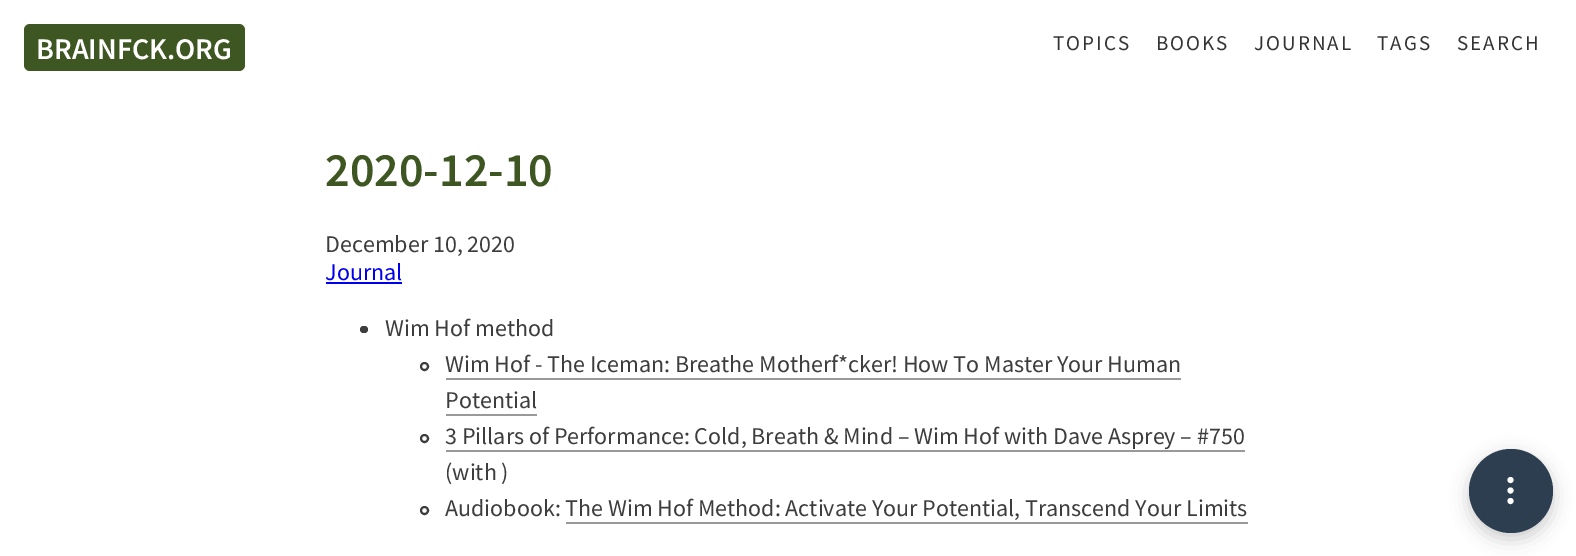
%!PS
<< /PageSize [1576 556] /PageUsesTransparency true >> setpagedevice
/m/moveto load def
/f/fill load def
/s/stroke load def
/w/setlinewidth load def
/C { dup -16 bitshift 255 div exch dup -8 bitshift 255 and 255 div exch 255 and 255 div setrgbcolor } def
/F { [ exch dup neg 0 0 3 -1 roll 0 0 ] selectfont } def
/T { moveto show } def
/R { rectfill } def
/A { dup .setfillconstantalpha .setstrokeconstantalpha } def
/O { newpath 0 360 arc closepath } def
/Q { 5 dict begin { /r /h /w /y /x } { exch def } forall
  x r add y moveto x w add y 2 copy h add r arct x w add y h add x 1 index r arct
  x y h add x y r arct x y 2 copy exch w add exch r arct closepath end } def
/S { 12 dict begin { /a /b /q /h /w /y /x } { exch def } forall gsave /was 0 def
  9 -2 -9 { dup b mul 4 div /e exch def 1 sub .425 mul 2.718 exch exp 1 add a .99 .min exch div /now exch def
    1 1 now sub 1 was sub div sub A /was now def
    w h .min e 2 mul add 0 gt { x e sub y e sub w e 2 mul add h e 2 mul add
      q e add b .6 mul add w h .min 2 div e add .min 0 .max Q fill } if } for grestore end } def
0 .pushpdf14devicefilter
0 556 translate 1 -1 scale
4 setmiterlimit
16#FFFFFF C
0 0 1576 556 R
16#3E5622 C
24 24 221 47 6 Q f
/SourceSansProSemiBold-SemiBold 30 F
16#FFFFFF C
(BRAINFCK.ORG) 36 59 T
/SourceSansPro-Regular 21 F
16#333333 C
1053 50 m 2 0 (TOPICS) ashow
1156 50 m 2 0 (BOOKS) ashow
1254 50 m 2 0 (JOURNAL) ashow
1377 50 m 2 0 (TAGS) ashow
1457 50 m 2 0 (SEARCH) ashow
/SourceSansProSemiBold-SemiBold 48 F
16#3E5622 C
(2020-12-10) 325 186 T
/SourceSansPro-Regular 24 F
16#3D3D3D C
(December 10, 2020) 325 252 T
16#0000EE C
(Journal) 325 280 T
326 282 76 2 R
16#3D3D3D C
360 326 8 7 3.5 Q f
(Wim Hof method) 385 336 T
2 w
424.5 366.5 3.5 O s
(Wim Hof - The Iceman: Breathe Motherf*cker! How To Master Your Human) 445 372 T
16#999999 C
446 378 735 2 R
16#3D3D3D C
(Potential) 445 408 T
16#999999 C
446 414 91 2 R
16#3D3D3D C
424.5 438.5 3.5 O s
(3 Pillars of Performance: Cold, Breath & Mind – Wim Hof with Dave Asprey – #750) 445 444 T
16#999999 C
446 450 799 2 R
16#3D3D3D C
(\(with \)) 445 480 T
424.5 510.5 3.5 O s
(Audiobook: The Wim Hof Method: Activate Your Potential, Transcend Your Limits) 445 516 T
16#999999 C
566 522 682 2 R
16#000000 C
1469 455 84 84 42 9 .2 S
16#2C3E50 C
1511 491 42 O f
16#FFFFFF C
3 w
1510.5 490.5 1.5 O s
1510.5 480 1.5 O s
1510.5 501 1.5 O s
.poppdf14devicefilter showpage
